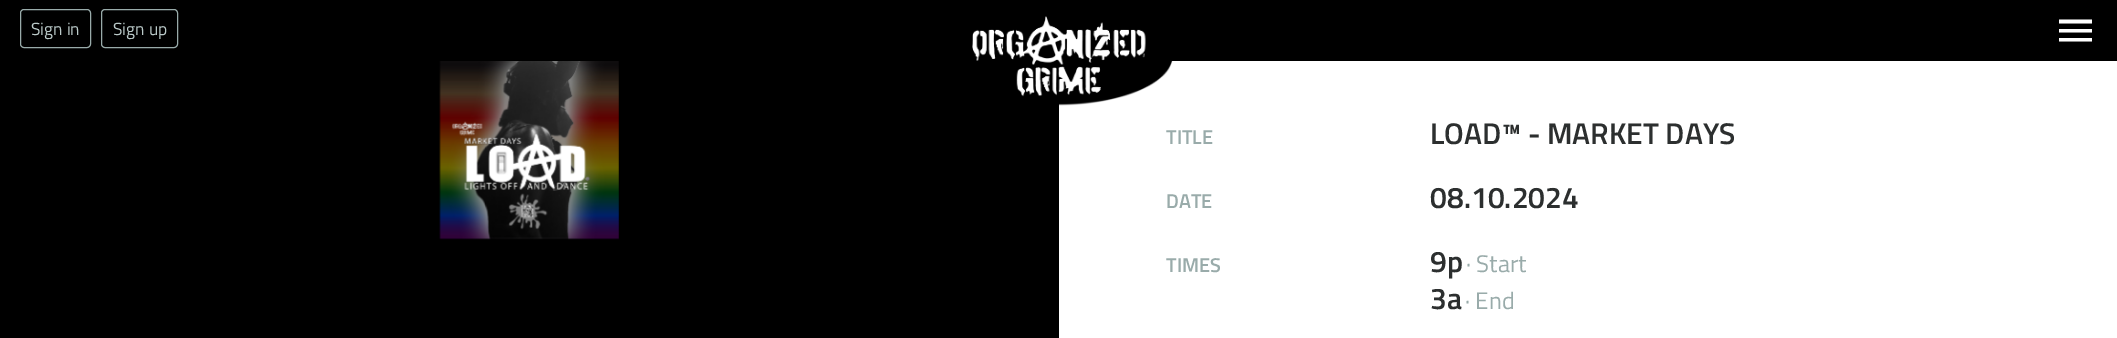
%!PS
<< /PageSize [2117 338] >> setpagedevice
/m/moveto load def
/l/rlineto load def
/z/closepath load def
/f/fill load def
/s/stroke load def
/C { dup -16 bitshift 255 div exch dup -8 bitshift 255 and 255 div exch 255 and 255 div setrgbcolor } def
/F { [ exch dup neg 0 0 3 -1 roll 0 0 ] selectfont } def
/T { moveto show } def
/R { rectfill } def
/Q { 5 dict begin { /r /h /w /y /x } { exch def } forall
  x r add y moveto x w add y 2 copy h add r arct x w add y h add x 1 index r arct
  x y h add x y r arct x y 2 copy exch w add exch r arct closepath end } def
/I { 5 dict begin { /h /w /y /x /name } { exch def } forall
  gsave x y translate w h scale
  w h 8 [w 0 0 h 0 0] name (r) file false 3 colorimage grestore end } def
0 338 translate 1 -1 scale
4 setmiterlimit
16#000000 C
0 0 2117 338 R
16#99ABAA C
20.5 9.5 70 38 3.5 Q s
/TitilliumWeb-Regular 17.5 F
16#BAC9C8 C
(Sign in) 31 35 T
16#99ABAA C
101.5 9.5 76 38 3.5 Q s
16#BAC9C8 C
(Sign up) 113 35 T
16#FFFFFF C
2059 41.5 m 33 0 l 0 -3.5 l -33 0 l z 2059 32.5 m 33 0 l 0 -3.5 l -33 0 l z 2059 19.5 m 0 4 l 33 0 l 0 -4 l z f
1059 61 1058 277 R
(1.rgb) 972 16 201 90 I
(2.rgb) 439 61 180 179 I
/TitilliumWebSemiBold-SemiBold 20 F
16#99ABAA C
(TITLE) 1166 144 T
/TitilliumWebSemiBold-SemiBold 30 F
16#2C2F2F C
(LOAD™ - MARKET DAYS) 1430 144 T
/TitilliumWebSemiBold-SemiBold 20 F
16#99ABAA C
(DATE) 1166 208 T
/TitilliumWebSemiBold-SemiBold 30 F
16#2C2F2F C
(08.10.2024) 1430 208 T
/TitilliumWebSemiBold-SemiBold 20 F
16#99ABAA C
(TIMES) 1166 272 T
/TitilliumWebSemiBold-SemiBold 30 F
16#2C2F2F C
(9p) 1430 272 T
/TitilliumWeb-Regular 24 F
16#99ABAA C
(· Start) 1466 272 T
/TitilliumWebSemiBold-SemiBold 30 F
16#2C2F2F C
(3a) 1430 309 T
/TitilliumWeb-Regular 24 F
16#99ABAA C
(· End) 1465 309 T
showpage
